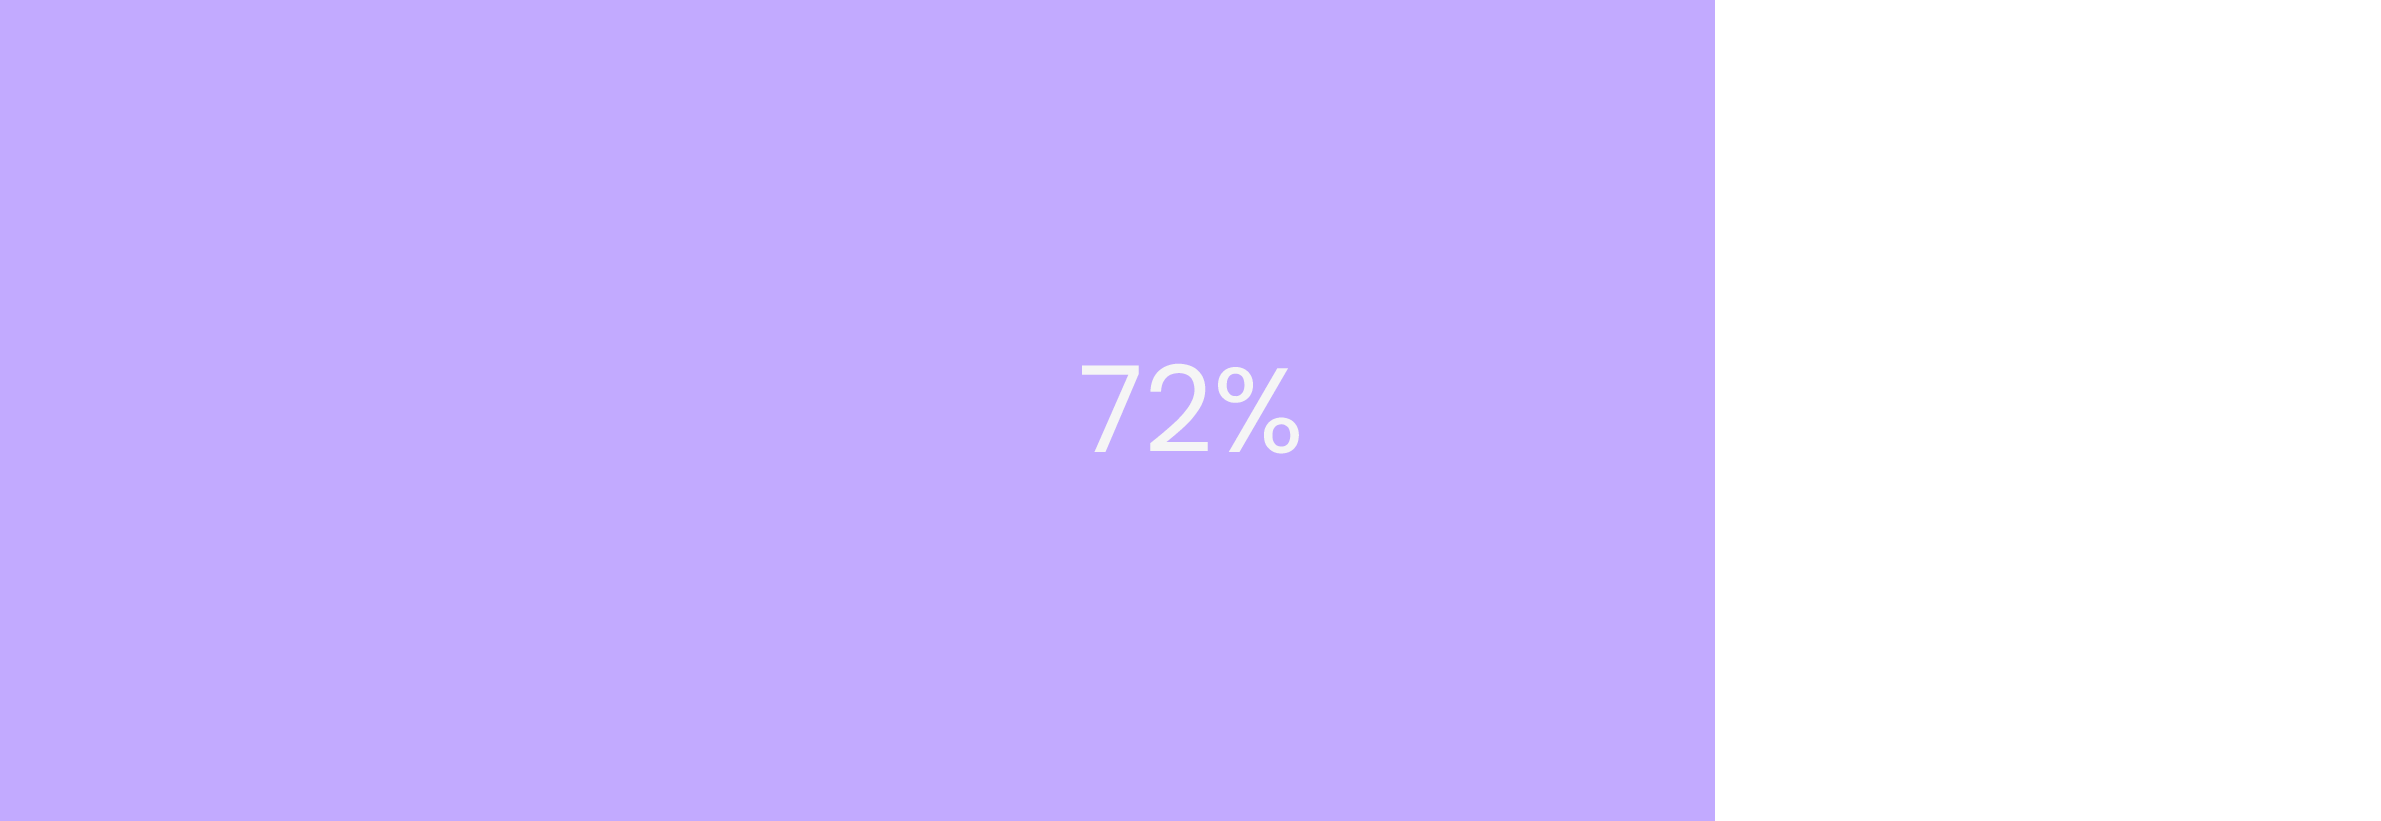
%!PS
<< /PageSize [2381 821] >> setpagedevice
/C { dup -16 bitshift 255 div exch dup -8 bitshift 255 and 255 div exch 255 and 255 div setrgbcolor } def
/F { [ exch dup neg 0 0 3 -1 roll 0 0 ] selectfont } def
/T { moveto show } def
/R { rectfill } def
0 821 translate 1 -1 scale
4 setmiterlimit
16#FFFFFF C
0 0 2381 821 R
16#C2AAFF C
0 0 1715 821 R
/Poppins-Regular 120 F
16#F5F5F5 C
(72%) 1078 452 T
showpage
